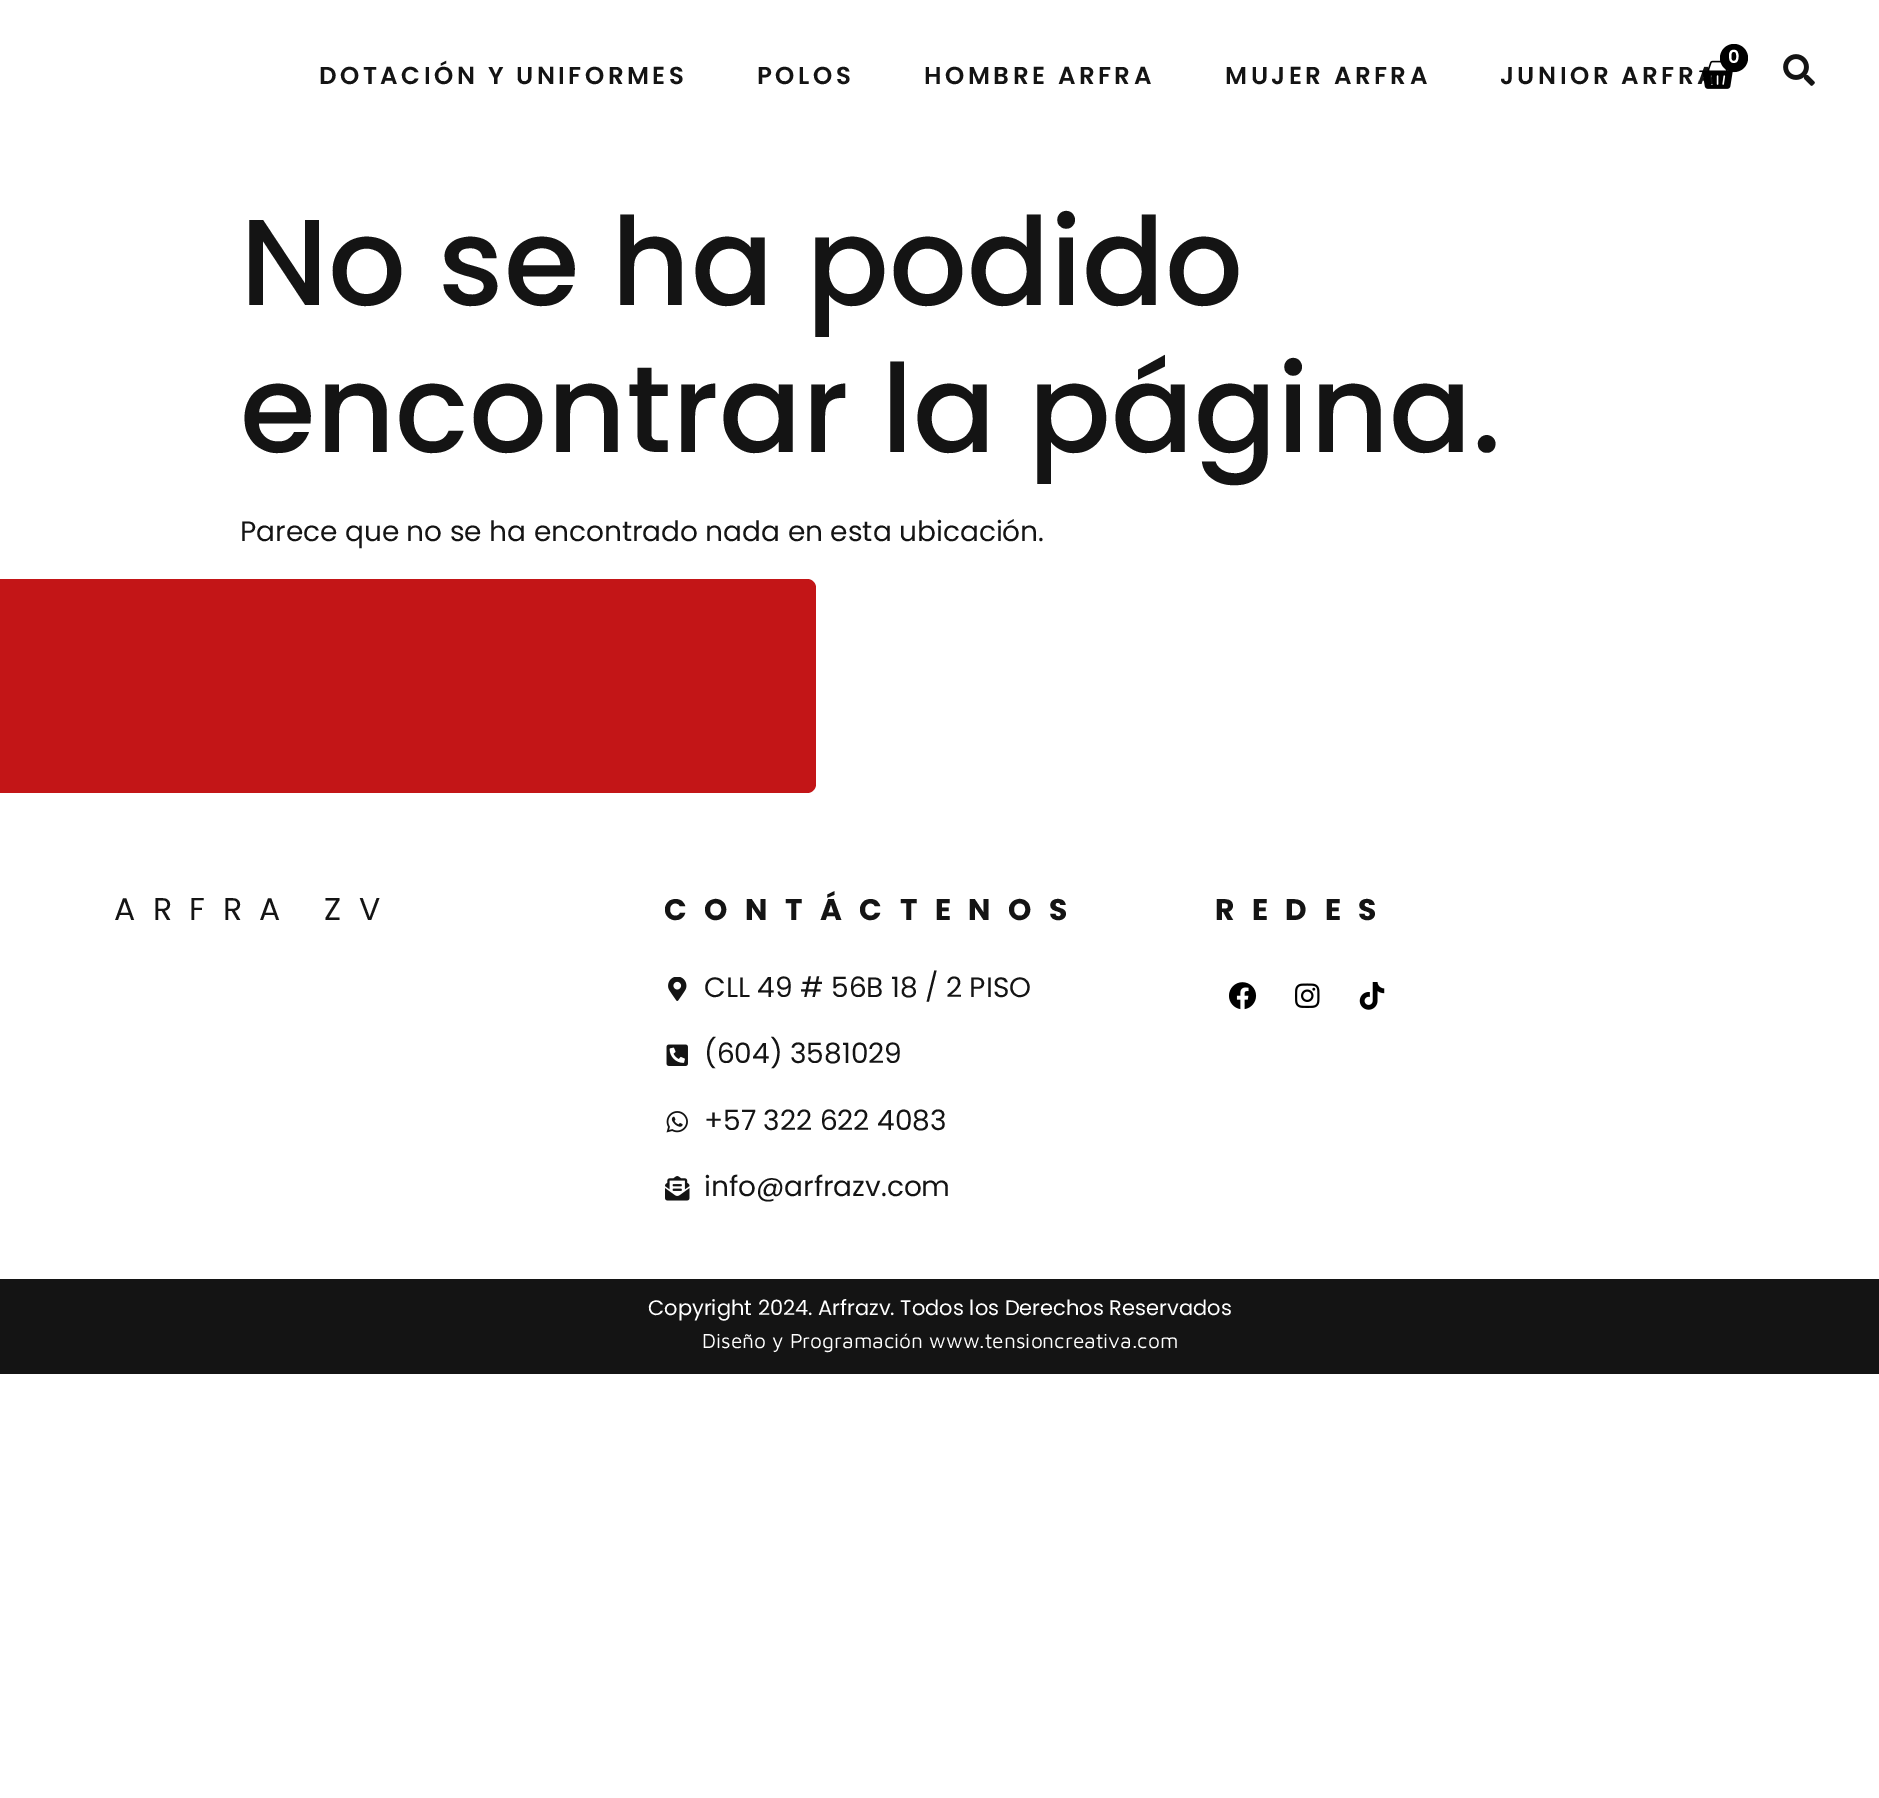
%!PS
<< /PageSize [1879 1798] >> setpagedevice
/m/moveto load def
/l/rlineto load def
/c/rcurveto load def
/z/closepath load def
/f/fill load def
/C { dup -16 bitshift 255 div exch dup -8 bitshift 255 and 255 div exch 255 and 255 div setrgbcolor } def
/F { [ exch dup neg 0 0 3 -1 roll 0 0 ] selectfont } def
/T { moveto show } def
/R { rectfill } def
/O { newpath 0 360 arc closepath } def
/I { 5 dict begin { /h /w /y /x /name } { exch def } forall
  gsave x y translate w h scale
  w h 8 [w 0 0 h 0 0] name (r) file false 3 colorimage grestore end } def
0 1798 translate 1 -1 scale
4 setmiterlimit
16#FFFFFF C
0 0 1879 1798 R
/Poppins-SemiBold 24.5 F
16#141414 C
319 84 m 3.5 0 (DOTACIÓN Y UNIFORMES) ashow
757 84 m 3.5 0 (POLOS) ashow
924 84 m 3.5 0 (HOMBRE ARFRA) ashow
1225 84 m 3.5 0 (MUJER ARFRA) ashow
1500 84 m 3.5 0 (JUNIOR ARFRA) ashow
(1.rgb) 1699 60 37 29 I
16#000000 C
1734 58 14 O f
/Poppins-SemiBold 18 F
16#FFFFFF C
(0) 1728 63 T
(2.rgb) 1783 54 32 32 I
/Poppins-Medium 122.5 F
16#141414 C
(No se ha podido) 240 305 T
(encontrar la página.) 240 452 T
/Poppins-Regular 28 F
(Parece que no se ha encontrado nada en esta ubicación.) 240 541 T
16#C31517 C
0 579 75 214 R
75 579 m 732 0 l 5 0 9 4 9 9 c 0 196 l 0 5 -4 9 -9 9 c -732 0 l z f
/Poppins-Regular 31.5 F
16#141414 C
114 920 m 17.5 0 (ARFRA ZV) ashow
/Poppins-Bold 29.75 F
664 920 m 17.5 0 (CONTÁCTENOS) ashow
(3.rgb) 668 977 19 24 I
/Poppins-Regular 28 F
(CLL 49 # 56B 18 / 2 PISO) 704 997 T
(4.rgb) 666 1044 22 22 I
(\(604\) 3581029) 704 1063 T
(5.rgb) 666 1111 22 22 I
(+57 322 622 4083) 704 1130 T
(6.rgb) 665 1176 25 25 I
(info@arfrazv.com) 704 1196 T
/Poppins-Bold 29.75 F
1215 920 m 17.5 0 (REDES) ashow
(7.rgb) 1229 982 28 28 I
(8.rgb) 1295 983 25 25 I
(9.rgb) 1359 982 26 28 I
0 1279 1879 95 R
/Poppins-Regular 21 F
16#FFFFFF C
(Copyright 2024. Arfrazv. Todos los Derechos Reservados) 648 1315 T
/MavenPro-Regular 21 F
(Diseño y Programación www.tensioncreativa.com) 702 1348 T
showpage
